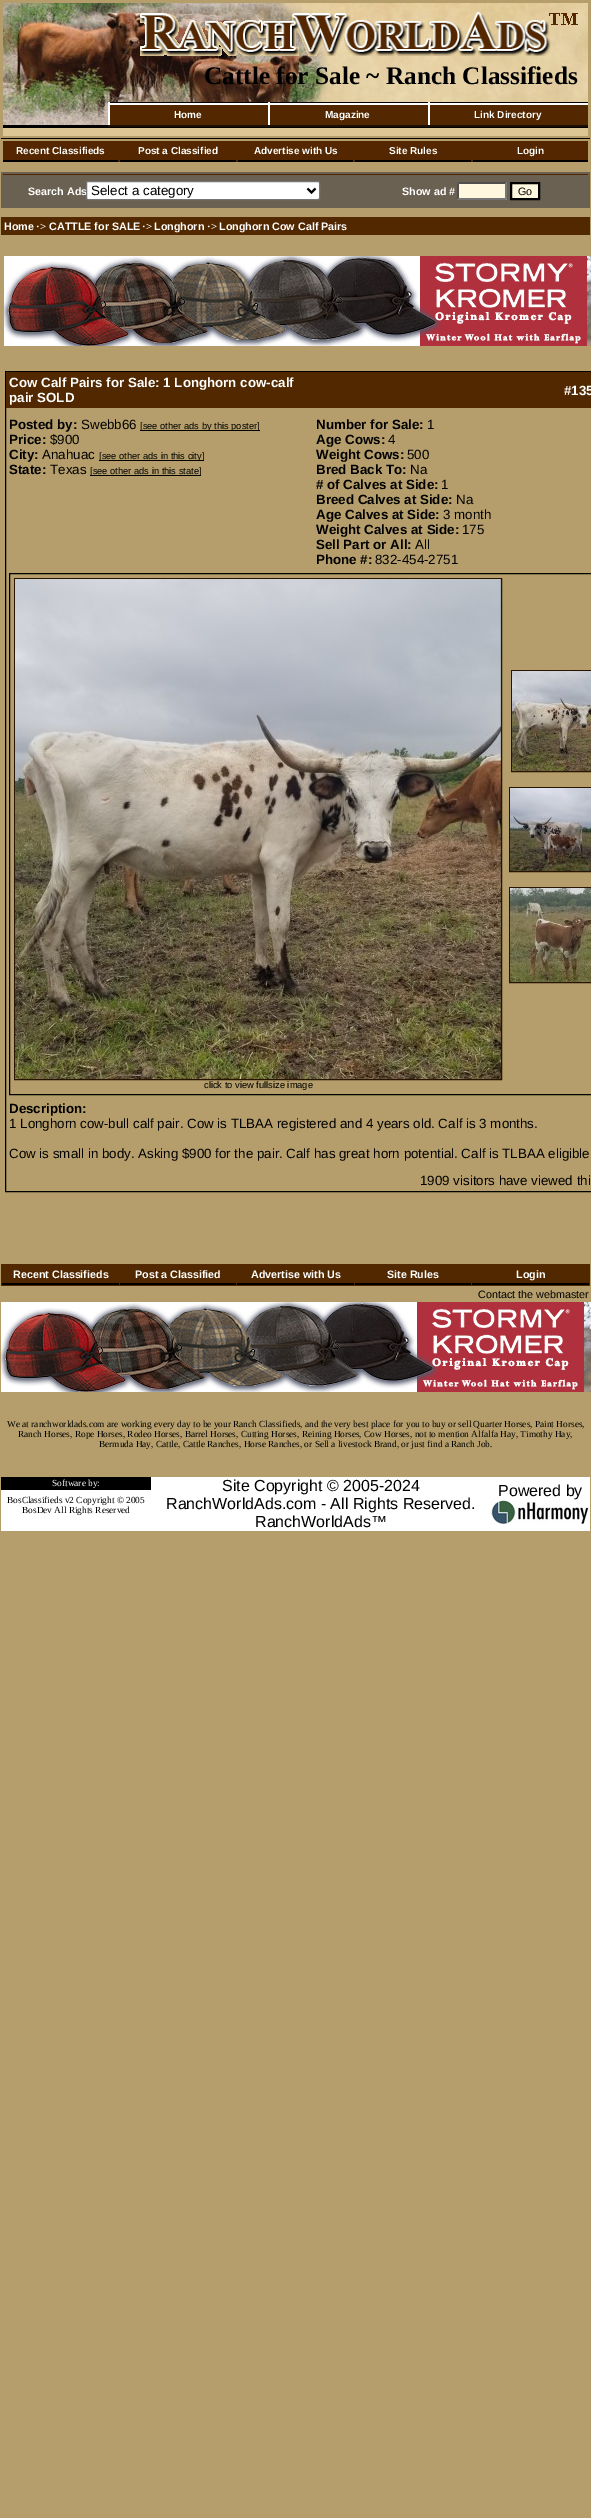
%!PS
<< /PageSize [591 2518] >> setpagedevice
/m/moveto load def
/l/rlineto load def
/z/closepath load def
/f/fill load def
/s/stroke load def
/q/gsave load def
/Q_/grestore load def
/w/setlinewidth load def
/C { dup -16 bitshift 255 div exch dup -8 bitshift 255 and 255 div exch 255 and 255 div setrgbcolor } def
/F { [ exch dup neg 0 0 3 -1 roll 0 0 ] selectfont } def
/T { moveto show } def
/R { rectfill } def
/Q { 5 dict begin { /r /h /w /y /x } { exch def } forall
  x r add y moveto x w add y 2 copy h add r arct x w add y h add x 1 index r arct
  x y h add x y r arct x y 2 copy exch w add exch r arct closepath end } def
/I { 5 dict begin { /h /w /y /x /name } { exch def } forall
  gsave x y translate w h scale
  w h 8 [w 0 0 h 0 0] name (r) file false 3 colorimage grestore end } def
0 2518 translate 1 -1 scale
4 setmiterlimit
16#B59E6B C
0 0 591 2518 R
16#DDC594 C
3 128 585 8 R
(1.rgb) 3 3 585 122 I
(2.rgb) 140 12 438 44 I
/LiberationSerif-Bold 25.3 F
16#000000 C
(Cattle for Sale ~ Ranch Classifieds) 204 84 T
(3.rgb) 108 102 160 25 I
/LiberationSans-Bold 10 F
16#FFFFFF C
(Home) 174 118 T
(3.rgb) 268 102 160 25 I
(Magazine) 325 118 T
(3.rgb) 428 102 160 25 I
(Link Directory) 474 118 T
16#000000 C
3 125 105 2 R
3 127 585 1 R
1 138 589 1 R
16#542700 C
3 141 585 21 R
16#000000 C
3 160 115 2 R
16#FFFFFF C
(Recent Classifieds) 16 154 T
16#000000 C
120 160 116 2 R
16#FFFFFF C
(Post a Classified) 138 154 T
16#000000 C
238 160 115 2 R
16#FFFFFF C
(Advertise with Us) 254 154 T
16#000000 C
355 160 116 2 R
16#FFFFFF C
(Site Rules) 389 154 T
16#000000 C
473 160 115 2 R
16#FFFFFF C
(Login) 517 154 T
16#6B6152 C
1 172 589 36 R
16#542700 C
3 174 585 1 R
/LiberationSans-Bold 10.75 F
16#FFFFFF C
(Search Ads) 28 195 T
86.5 181.5 233 18 1.5 Q q f Q_
16#767676 C
s
16#000000 C
2 w
307.5 188.5 m 4 4 l 4 -4 l s
/LiberationSans-Regular 13.35 F
(Select a category) 91 195 T
/LiberationSans-Bold 10.75 F
16#FFFFFF C
(Show ad #) 402 195 T
16#FFF7DE C
457 182 50 18 R
16#4F4F4F C
457 182 m 50 0 l -2 2 l -46 0 l z f
16#767676 C
507 182 m 0 18 l -2 -2 l 0 -14 l z f
507 200 m -50 0 l 2 -2 l 46 0 l z f
16#4F4F4F C
457 200 m 0 -18 l 2 2 l 0 14 l z f
16#FFF7DE C
511 183 m 28 0 l 0 16 l -28 0 l z q f Q_
16#000000 C
s
/LiberationSans-Regular 10.75 F
(Go) 518 195 T
16#522800 C
1 217 589 18 R
/LiberationSans-Bold 10.75 F
16#FFFFFF C
(Home) 4 230 T
/LiberationSerif-Bold 10.75 F
(·>) 36 230 T
/LiberationSans-Bold 10.75 F
(CATTLE for SALE) 49 230 T
/LiberationSerif-Bold 10.75 F
(·>) 142 230 T
/LiberationSans-Bold 10.75 F
(Longhorn) 154 230 T
/LiberationSerif-Bold 10.75 F
(·>) 207 230 T
/LiberationSans-Bold 10.75 F
(Longhorn Cow Calf Pairs) 219 230 T
(4.rgb) 4 256 587 90 I
16#000000 C
1 w
5.5 371.5 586 820 rectstroke
16#522800 C
6 372 585 36 R
/LiberationSans-Bold 13.35 F
16#FFFFFF C
(Cow Calf Pairs for Sale: 1 Longhorn cow-calf) 9 387 T
(pair SOLD) 9 402 T
(#135) 564 395 T
16#000000 C
(Posted by:) 9 429 T
/LiberationSans-Regular 13.35 F
(Swebb66) 81 429 T
140 430 120 1 R
/LiberationSans-Regular 9.33 F
([see other ads by this poster]) 140 429 T
/LiberationSans-Bold 13.35 F
(Price:) 9 444 T
/LiberationSans-Regular 13.35 F
($900) 50 444 T
/LiberationSans-Bold 13.35 F
(City:) 9 459 T
/LiberationSans-Regular 13.35 F
(Anahuac) 42 459 T
99 460 105 1 R
/LiberationSans-Regular 9.33 F
([see other ads in this city]) 99 459 T
/LiberationSans-Bold 13.35 F
(State:) 9 474 T
/LiberationSans-Regular 13.35 F
(Texas) 50 474 T
90 475 111 1 R
/LiberationSans-Regular 9.33 F
([see other ads in this state]) 90 474 T
/LiberationSans-Bold 13.35 F
(Number for Sale:) 316 429 T
/LiberationSans-Regular 13.35 F
(1) 427 429 T
/LiberationSans-Bold 13.35 F
(Age Cows:) 316 444 T
/LiberationSans-Regular 13.35 F
(4) 388 444 T
/LiberationSans-Bold 13.35 F
(Weight Cows:) 316 459 T
/LiberationSans-Regular 13.35 F
(500) 407 459 T
/LiberationSans-Bold 13.35 F
(Bred Back To:) 316 474 T
/LiberationSans-Regular 13.35 F
(Na) 410 474 T
/LiberationSans-Bold 13.35 F
(# of Calves at Side:) 316 489 T
/LiberationSans-Regular 13.35 F
(1) 441 489 T
/LiberationSans-Bold 13.35 F
(Breed Calves at Side:) 316 504 T
/LiberationSans-Regular 13.35 F
(Na) 456 504 T
/LiberationSans-Bold 13.35 F
(Age Calves at Side:) 316 519 T
/LiberationSans-Regular 13.35 F
(3 month) 443 519 T
/LiberationSans-Bold 13.35 F
(Weight Calves at Side:) 316 534 T
/LiberationSans-Regular 13.35 F
(175) 462 534 T
/LiberationSans-Bold 13.35 F
(Sell Part or All:) 316 549 T
/LiberationSans-Regular 13.35 F
(All) 415 549 T
/LiberationSans-Bold 13.35 F
(Phone #:) 316 564 T
/LiberationSans-Regular 13.35 F
(832-454-2751) 375 564 T
9.5 573.5 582 521 rectstroke
16#291400 C
511.5 670.5 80 101 rectstroke
(5.rgb) 512 671 79 100 I
509.5 787.5 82 84 rectstroke
(6.rgb) 510 788 81 83 I
509.5 887.5 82 95 rectstroke
(7.rgb) 510 888 81 94 I
14.5 578.5 487 501 rectstroke
(8.rgb) 15 579 486 500 I
/LiberationSans-Regular 9.33 F
16#000000 C
(click to view fullsize image) 204 1088 T
/LiberationSans-Bold 13.35 F
(Description:) 9 1113 T
/LiberationSans-Regular 13.35 F
(1 Longhorn cow-bull calf pair. Cow is TLBAA registered and 4 years old. Calf is 3 months.) 9 1128 T
(Cow is small in body. Asking $900 for the pair. Calf has great horn potential. Calf is TLBAA eligible) 9 1158 T
(1909 visitors have viewed thi) 420 1185 T
16#522800 C
1 1264 589 22 R
16#000000 C
2 1283 117 2 R
/LiberationSans-Bold 10.75 F
16#FFFFFF C
(Recent Classifieds) 13 1278 T
16#000000 C
120 1283 116 2 R
16#FFFFFF C
(Post a Classified) 135 1278 T
16#000000 C
237 1283 117 2 R
16#FFFFFF C
(Advertise with Us) 251 1278 T
16#000000 C
355 1283 116 2 R
16#FFFFFF C
(Site Rules) 387 1278 T
16#000000 C
472 1283 117 2 R
16#FFFFFF C
(Login) 516 1278 T
/LiberationSans-Regular 10.75 F
16#000000 C
(Contact the webmaster) 478 1298 T
(9.rgb) 1 1302 590 90 I
/LiberationSerif-Regular 9.33 F
(We at ranchworldads.com are working every day to be your Ranch Classifieds, and the very best place for you to buy or sell Quarter Horses, Paint Horses,) 7 1427 T
(Ranch Horses, Rope Horses, Rodeo Horses, Barrel Horses, Cutting Horses, Reining Horses, Cow Horses, not to mention Alfalfa Hay, Timothy Hay,) 18 1437 T
(Bermuda Hay, Cattle, Cattle Ranches, Horse Ranches, or Sell a livestock Brand, or just find a Ranch Job.) 99 1447 T
16#FFFFFF C
1 1477 589 54 R
16#000000 C
1 1477 150 13 R
16#FFFFFF C
(Software by:) 52 1486 T
/LiberationSans-Regular 16 F
16#000000 C
(Site Copyright © 2005-2024) 222 1491 T
(RanchWorldAds.com - All Rights Reserved.) 166 1509 T
(RanchWorldAds™) 255 1527 T
(Powered by) 498 1496 T
(10.rgb) 490 1500 99 24 I
/LiberationSerif-Regular 9.33 F
(BosClassifieds v2 Copyright © 2005) 7 1503 T
(BosDev All Rights Reserved) 22 1513 T
showpage
